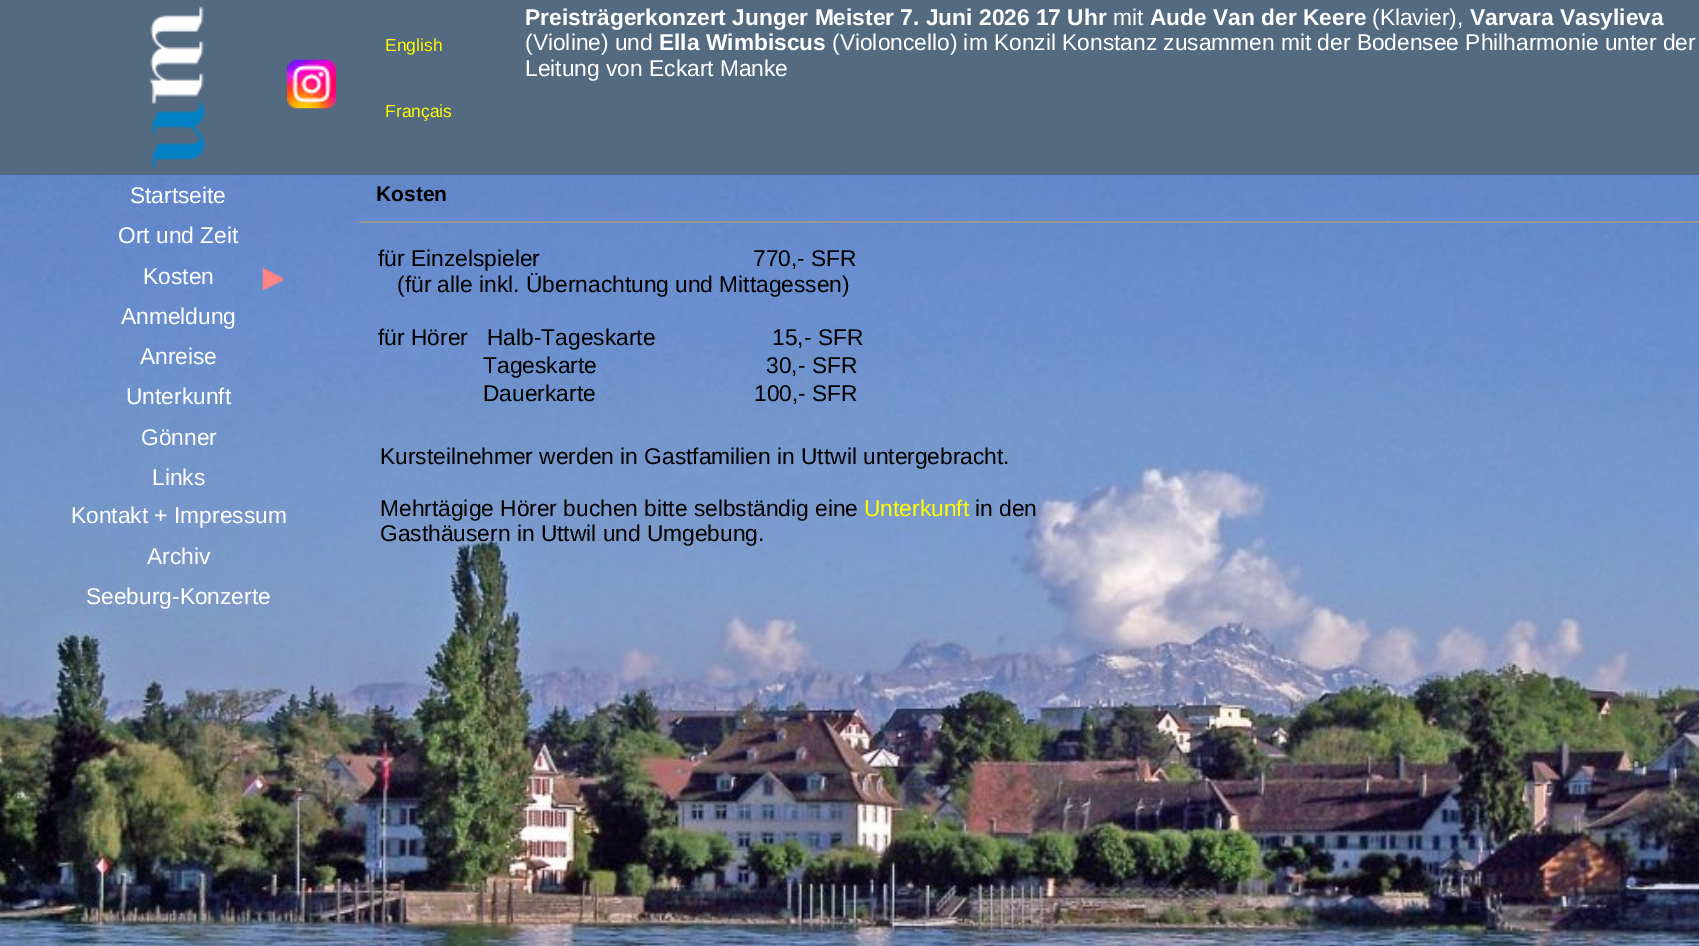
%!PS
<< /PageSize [1699 946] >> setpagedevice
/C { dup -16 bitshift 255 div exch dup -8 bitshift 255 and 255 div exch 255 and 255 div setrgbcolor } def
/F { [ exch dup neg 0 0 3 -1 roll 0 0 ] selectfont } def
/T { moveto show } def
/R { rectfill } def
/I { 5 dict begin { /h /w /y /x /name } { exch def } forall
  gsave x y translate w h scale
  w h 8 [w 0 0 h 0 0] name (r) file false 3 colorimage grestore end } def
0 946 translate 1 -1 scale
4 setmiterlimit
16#FFFFFF C
0 0 1699 946 R
(1.rgb) 0 175 1699 771 I
16#546A81 C
0 0 1699 175 R
(2.rgb) 148 6 58 163 I
/LiberationSans-Regular 17.5 F
16#FFFF00 C
(English) 385 51 T
/LiberationSans-Bold 22.75 F
16#FFFFFF C
(Preisträgerkonzert Junger Meister 7. Juni 2026 17 Uhr) 525 25 T
/LiberationSans-Regular 22.75 F
(mit) 1113 25 T
/LiberationSans-Bold 22.75 F
(Aude Van der Keere) 1150 25 T
/LiberationSans-Regular 22.75 F
(\(Klavier\),) 1372 25 T
/LiberationSans-Bold 22.75 F
(Varvara Vasylieva) 1470 25 T
/LiberationSans-Regular 22.75 F
(\(Violine\) und) 525 50 T
/LiberationSans-Bold 22.75 F
(Ella Wimbiscus) 659 50 T
/LiberationSans-Regular 22.75 F
(\(Violoncello\) im Konzil Konstanz zusammen mit der Bodensee Philharmonie unter der) 832 50 T
(Leitung von Eckart Manke) 525 76 T
(3.rgb) 287 59 49 50 I
/LiberationSans-Regular 17.5 F
16#FFFF00 C
(Français) 385 117 T
/LiberationSans-Regular 22.75 F
16#FFFFFF C
(Startseite) 130 203 T
(Ort und Zeit) 118 243 T
(Kosten) 143 284 T
(Anmeldung) 121 324 T
(Anreise) 140 364 T
(Unterkunft) 126 404 T
(Gönner) 141 445 T
(Links) 152 485 T
(Kontakt + Impressum) 71 523 T
(Archiv) 147 564 T
(Seeburg-Konzerte) 86 604 T
16#969696 C
359 221 1340 2 R
/LiberationSans-Bold 21 F
16#000000 C
(Kosten) 376 201 T
(4.rgb) 262 267 22 24 I
/LiberationSans-Regular 22.75 F
(für Einzelspieler) 378 266 T
(770,- SFR) 753 266 T
(\(für alle inkl. Übernachtung und Mittagessen\)) 397 292 T
(für Hörer) 378 345 T
(Halb-Tageskarte) 487 345 T
(15,- SFR) 772 345 T
(Tageskarte) 483 373 T
(30,- SFR) 766 373 T
(Dauerkarte) 483 401 T
(100,- SFR) 754 401 T
(Kursteilnehmer werden in Gastfamilien in Uttwil untergebracht.) 380 464 T
(Mehrtägige Hörer buchen bitte selbständig eine) 380 516 T
16#FFFF00 C
(Unterkunft) 864 516 T
16#000000 C
(in den) 975 516 T
(Gasthäusern in Uttwil und Umgebung.) 380 541 T
showpage
